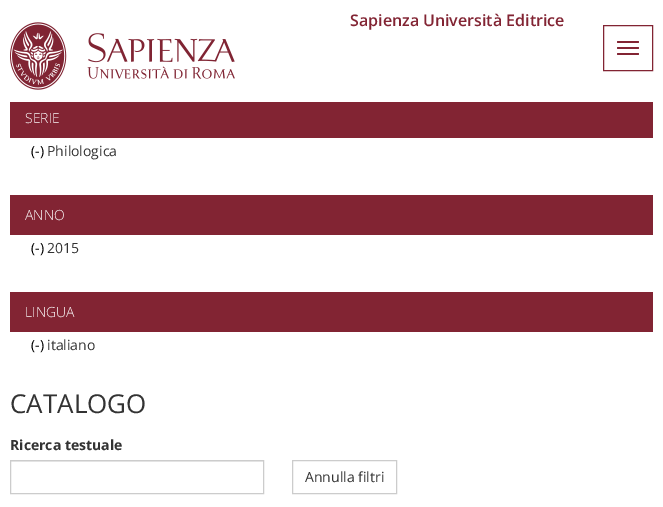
%!PS
<< /PageSize [663 507] >> setpagedevice
/f/fill load def
/C { dup -16 bitshift 255 div exch dup -8 bitshift 255 and 255 div exch 255 and 255 div setrgbcolor } def
/F { [ exch dup neg 0 0 3 -1 roll 0 0 ] selectfont } def
/T { moveto show } def
/R { rectfill } def
/Q { 5 dict begin { /r /h /w /y /x } { exch def } forall
  x r add y moveto x w add y 2 copy h add r arct x w add y h add x 1 index r arct
  x y h add x y r arct x y 2 copy exch w add exch r arct closepath end } def
/I { 5 dict begin { /h /w /y /x /name } { exch def } forall
  gsave x y translate w h scale
  w h 8 [w 0 0 h 0 0] name (r) file false 3 colorimage grestore end } def
0 507 translate 1 -1 scale
4 setmiterlimit
16#FFFFFF C
0 0 663 507 R
(1.rgb) 10 22 225 68 I
/OpenSans-SemiBold 16 F
16#822433 C
(Sapienza Università Editrice) 350 26 T
603.5 25.5 49 45 rectstroke
617 41 22 2 1 Q f
617 47 22 2 1 Q f
617 53 22 2 1 Q f
10 102 643 36 R
/OpenSans-Light 14 F
16#FFFFFF C
(SERIE) 25 123 T
/OpenSans-Regular 14 F
16#000000 C
(\(-\)) 31 156 T
16#333333 C
(Philologica) 47 156 T
16#822433 C
10 195 643 40 R
/OpenSans-Light 14 F
16#FFFFFF C
(ANNO) 25 220 T
/OpenSans-Regular 14 F
16#000000 C
(\(-\)) 31 253 T
16#333333 C
(2015) 47 253 T
16#822433 C
10 292 643 40 R
/OpenSans-Light 14 F
16#FFFFFF C
(LINGUA) 25 317 T
/OpenSans-Regular 14 F
16#000000 C
(\(-\)) 31 350 T
16#333333 C
(italiano) 47 350 T
/OpenSans-Regular 26 F
(CATALOGO) 10 413 T
/OpenSans-Bold 14 F
(Ricerca testuale) 10 450 T
16#ECECEC C
11 461 252 1 R
16#CCCCCC C
10.5 460.5 253 33 rectstroke
292.5 460.5 104 33 rectstroke
/OpenSans-Regular 14 F
16#333333 C
(Annulla filtri) 305 482 T
showpage
